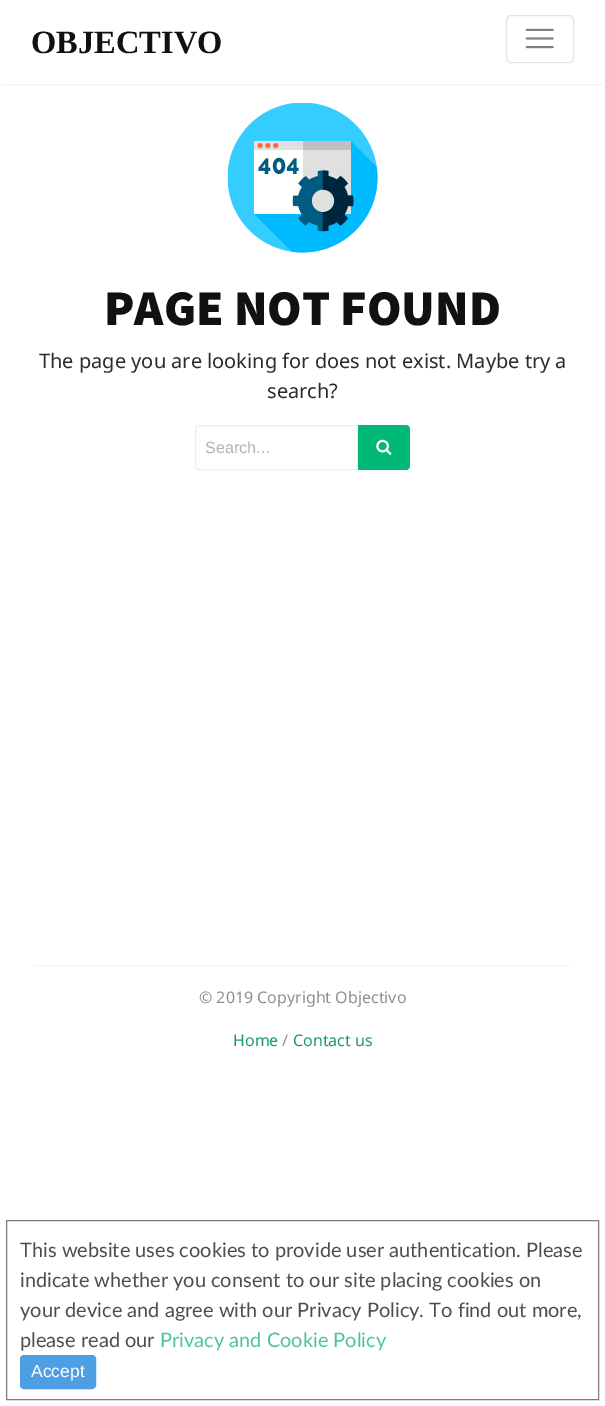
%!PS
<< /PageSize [605 1406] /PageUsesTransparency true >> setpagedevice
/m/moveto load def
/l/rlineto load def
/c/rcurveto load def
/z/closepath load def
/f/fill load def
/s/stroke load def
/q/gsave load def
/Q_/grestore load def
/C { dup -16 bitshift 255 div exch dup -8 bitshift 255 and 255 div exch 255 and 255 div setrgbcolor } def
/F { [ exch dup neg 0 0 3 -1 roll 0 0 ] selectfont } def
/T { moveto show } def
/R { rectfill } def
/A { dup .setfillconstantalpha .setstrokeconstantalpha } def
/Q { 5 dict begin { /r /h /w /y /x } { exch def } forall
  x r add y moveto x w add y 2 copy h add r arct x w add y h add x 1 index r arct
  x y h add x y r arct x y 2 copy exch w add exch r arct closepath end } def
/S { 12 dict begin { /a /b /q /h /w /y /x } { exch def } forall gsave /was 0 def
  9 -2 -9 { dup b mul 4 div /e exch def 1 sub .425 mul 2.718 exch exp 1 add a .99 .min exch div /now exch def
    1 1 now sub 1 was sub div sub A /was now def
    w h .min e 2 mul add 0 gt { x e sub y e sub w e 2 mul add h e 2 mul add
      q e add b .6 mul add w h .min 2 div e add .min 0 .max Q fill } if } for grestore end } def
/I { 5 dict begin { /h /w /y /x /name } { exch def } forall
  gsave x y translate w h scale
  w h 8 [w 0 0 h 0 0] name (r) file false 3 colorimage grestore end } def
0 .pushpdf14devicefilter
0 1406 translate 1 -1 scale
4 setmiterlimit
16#FFFFFF C
0 0 605 1406 R
q
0 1 m 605 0 l 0 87 l -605 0 l z 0 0 m 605 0 l 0 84 l -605 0 l z eoclip newpath
16#000000 C
3 5 600 79 0 1 .15 S
Q_
0.97 A
3 83 600 1 R
/LiberationSerif-Bold 32.5 F
1 A
16#111111 C
(OBJECTIVO) 31 53 T
16#E5E5E5 C
506.5 15.5 67 47 4.5 Q s
(1.rgb) 525 28 29 21 I
(2.rgb) 228 103 150 150 I
/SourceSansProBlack-Black 50 F
16#111111 C
(PAGE NOT FOUND) 104 325 T
/NotoSans-Regular 20 F
16#292B2C C
(The page you are looking for does not exist. Maybe try a) 39 368 T
(search?) 267 398 T
16#EEEEEE C
199 425.5 m 158.5 0 l 0 44 l -158.5 0 l -2 0 -3.5 -1.5 -3.5 -3.5 c 0 -37 l 0 -2 1.5 -3.5 3.5 -3.5 c z s
/LiberationSans-Regular 16.25 F
16#B2B2B2 C
(Search...) 205 453 T
16#02B875 C
358 425 m 48 0 l 2 0 4 2 4 4 c 0 37 l 0 2 -2 4 -4 4 c -48 0 l z f
(3.rgb) 376 439 16 16 I
16#F2F2F2 C
34 965 537 1 R
/NotoSans-Regular 16 F
16#8F8F8F C
(© 2019 Copyright Objectivo) 199 1003 T
16#1C9963 C
(Home) 233 1046 T
16#8F8F8F C
(/) 282 1046 T
16#1C9963 C
(Contact us) 293 1046 T
16#7C7C7C C
6.5 1220.5 592 179 rectstroke
/Lato-Regular 20 F
16#4D4D4D C
(This website uses cookies to provide user authentication. Please) 20 1257 T
(indicate whether you consent to our site placing cookies on) 20 1287 T
(your device and agree with our Privacy Policy. To find out more,) 20 1317 T
(please read our) 20 1347 T
16#4DC497 C
(Privacy and Cookie Policy) 160 1347 T
16#4E9EE4 C
20.5 1355.5 75 33 3.5 Q q f Q_
s
/LiberationSans-Regular 17.5 F
16#FFFFFF C
(Accept) 31 1377 T
.poppdf14devicefilter showpage
